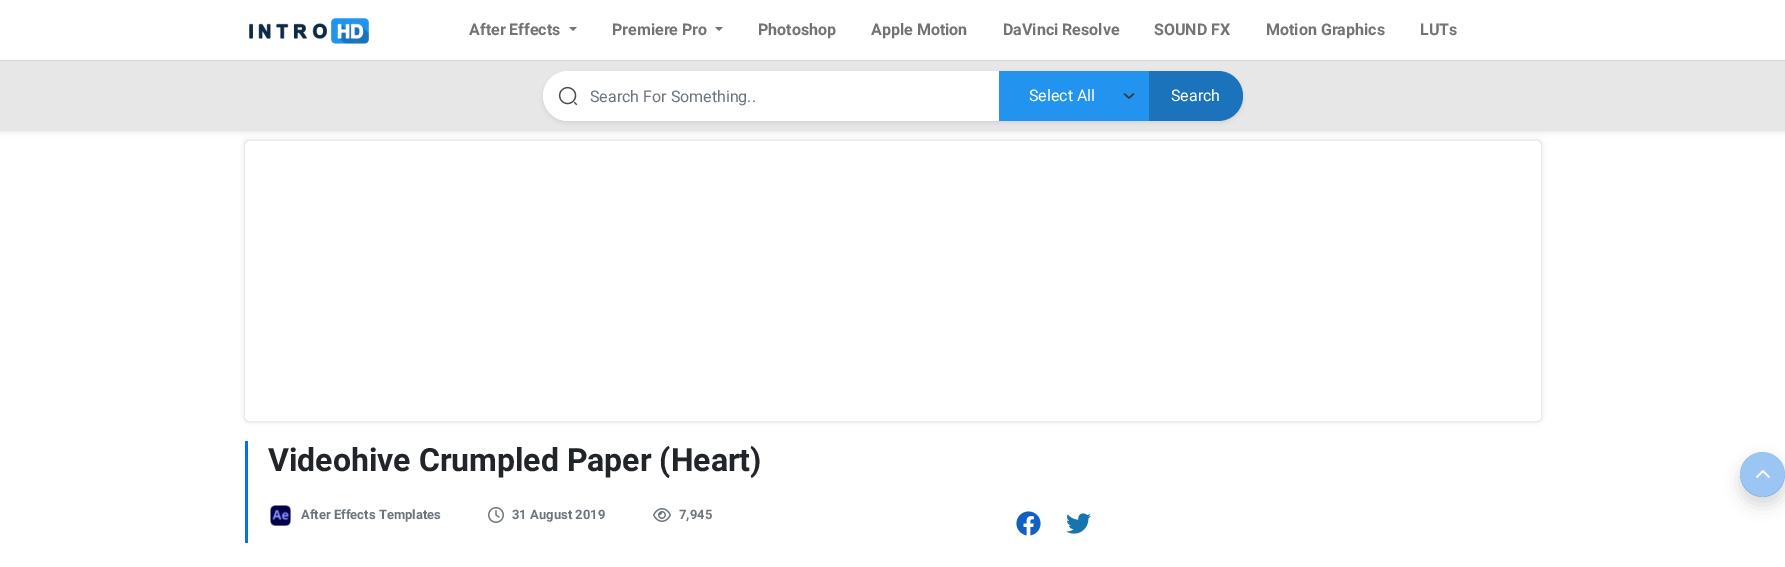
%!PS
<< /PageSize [1785 567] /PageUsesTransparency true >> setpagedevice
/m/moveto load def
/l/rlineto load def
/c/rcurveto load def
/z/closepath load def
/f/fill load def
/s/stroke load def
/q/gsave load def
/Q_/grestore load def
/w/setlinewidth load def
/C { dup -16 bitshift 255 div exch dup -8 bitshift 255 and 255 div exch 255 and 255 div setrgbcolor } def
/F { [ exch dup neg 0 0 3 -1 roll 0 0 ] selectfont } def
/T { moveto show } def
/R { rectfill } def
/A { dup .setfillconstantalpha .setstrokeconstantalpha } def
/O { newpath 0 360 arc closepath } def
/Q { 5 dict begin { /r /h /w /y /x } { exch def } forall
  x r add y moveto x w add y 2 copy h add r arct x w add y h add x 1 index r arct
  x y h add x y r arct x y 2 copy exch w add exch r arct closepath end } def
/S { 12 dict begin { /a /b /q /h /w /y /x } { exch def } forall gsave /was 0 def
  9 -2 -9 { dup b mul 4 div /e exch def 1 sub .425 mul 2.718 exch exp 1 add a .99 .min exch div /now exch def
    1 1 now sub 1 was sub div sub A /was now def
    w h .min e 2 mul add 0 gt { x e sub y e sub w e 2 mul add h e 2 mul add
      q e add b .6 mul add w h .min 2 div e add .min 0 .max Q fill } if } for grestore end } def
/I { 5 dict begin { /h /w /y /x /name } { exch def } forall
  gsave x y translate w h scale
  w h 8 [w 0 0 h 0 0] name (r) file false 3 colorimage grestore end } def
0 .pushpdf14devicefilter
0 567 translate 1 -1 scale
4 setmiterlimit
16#FFFFFF C
0 0 1785 567 R
(1.rgb) 249 17 120 27 I
/Roboto-Bold 16 F
16#737373 C
(After Effects) 469 35 T
569 27 m 8 0 l -4 4 l z f
(Premiere Pro) 612 35 T
715 27 m 8 0 l -4 4 l z f
(Photoshop) 758 35 T
(Apple Motion) 871 35 T
(DaVinci Resolve) 1003 35 T
(SOUND FX) 1154 35 T
(Motion Graphics) 1266 35 T
(LUTs) 1420 35 T
16#000000 C
0 62 1785 71 0 2 .07 S
16#E7E7E7 C
0 61 1785 70 R
16#D3D3D3 C
0 60 1785 1 R
16#000000 C
543 73 700 50 25 2 .07 S
16#FFFFFF C
543 71 700 50 25 Q f
(2.rgb) 558 86 20 20 I
/Roboto-Regular 16 F
16#6C757D C
(Search For Something..) 590 102 T
16#2294F0 C
999 71 150 50 R
16#343A40 C
1.5 w
1 setlinecap
1 setlinejoin
1124.5 94 m 4.5 4 l 4.5 -4 l s
16#FFFFFF C
(Select All) 1029 101 T
16#1B73BB C
1149 71 m 69 0 l 14 0 25 11 25 25 c 0 14 -11 25 -25 25 c -69 0 l z f
16#FFFFFF C
(Search) 1171 101 T
q
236 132 m 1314 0 l 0 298 l -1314 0 l z 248 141 m 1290 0 l 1.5 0 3 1.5 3 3 c 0 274 l 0 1.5 -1.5 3 -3 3 c -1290 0 l -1.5 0 -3 -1.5 -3 -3 c 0 -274 l 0 -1.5 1.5 -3 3 -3 c z eoclip newpath
16#000000 C
245 141 1296 280 3 2.5 .17 S
Q_
16#0671E0 C
245 441 3 102 R
/Roboto-Bold 32 F
16#212529 C
(Videohive Crumpled Paper \(Heart\)) 268 471 T
(3.rgb) 270 505 21 21 I
/Roboto-Bold 13 F
16#6C757D C
(After Effects Templates) 301 519 T
(4.rgb) 488 507 16 16 I
(31 August 2019) 512 519 T
(5.rgb) 653 508 18 14 I
(7,945) 679 519 T
(6.rgb) 1016 511 25 25 I
(7.rgb) 1066 513 25 21 I
q
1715 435 m 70 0 l 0 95 l -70 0 l z 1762.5 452 m 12.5 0 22.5 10 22.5 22.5 c 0 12.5 -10 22.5 -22.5 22.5 c -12.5 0 -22.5 -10 -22.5 -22.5 c 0 -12.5 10 -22.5 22.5 -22.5 c z eoclip newpath
16#000000 C
1740 460 45 45 22.5 8 .15 S
Q_
0.4 A
16#0671E0 C
1762.5 474.5 22.5 O f
1 A
(8.rgb) 1756 470 14 8 I
.poppdf14devicefilter showpage
